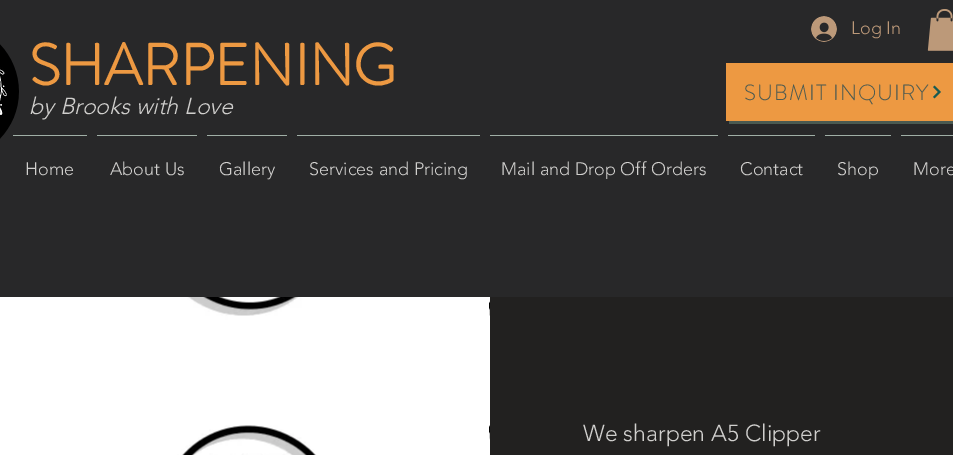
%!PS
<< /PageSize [953 455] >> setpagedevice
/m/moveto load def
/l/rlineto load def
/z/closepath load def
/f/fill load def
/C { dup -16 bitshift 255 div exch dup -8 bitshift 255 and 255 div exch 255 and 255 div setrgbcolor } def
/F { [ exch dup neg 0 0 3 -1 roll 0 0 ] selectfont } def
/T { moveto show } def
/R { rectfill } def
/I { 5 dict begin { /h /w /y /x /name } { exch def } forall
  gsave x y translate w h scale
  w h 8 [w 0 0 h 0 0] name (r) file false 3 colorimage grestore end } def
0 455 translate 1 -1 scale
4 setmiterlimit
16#FFFFFF C
0 0 953 455 R
16#282829 C
0 0 953 297 R
(1.rgb) 811 16 26 26 I
/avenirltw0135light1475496-Light 18 F
16#BC9979 C
(Log In) 851 34 T
(2.rgb) 927 9 26 42 I
(3.rgb) 0 44 19 95 I
/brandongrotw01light-Bold 58 F
16#ED9942 C
(SHARPENING) 29 85 T
/avenirltw0135light1475496-LightItalic 23 F
16#D0CFCD C
(by Brooks with Love) 29 114 T
16#4B5A51 C
729 121 m 0 3 l 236 0 l 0 -58 l -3 0 l 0 55 l z f
16#ED9942 C
726 63 227 58 R
/brandongrotw01light-Light 22 F
16#4B5A51 C
744 100 m 1.1 0 (SUBMIT INQUIRY) ashow
(4.rgb) 933 85 8 14 I
16#A0AFA6 C
13 135 74 1 R
/avenirltw0135light1475496-Light 18 F
16#D0CFCD C
(Home) 25 175 T
16#A0AFA6 C
97 135 100 1 R
16#D0CFCD C
(About Us) 110 175 T
16#A0AFA6 C
207 135 80 1 R
16#D0CFCD C
(Gallery) 219 175 T
16#A0AFA6 C
297 135 183 1 R
16#D0CFCD C
(Services and Pricing) 309 175 T
16#A0AFA6 C
490 135 228 1 R
16#D0CFCD C
(Mail and Drop Off Orders) 501 175 T
16#A0AFA6 C
728 135 87 1 R
16#D0CFCD C
(Contact) 740 175 T
16#A0AFA6 C
825 135 66 1 R
16#D0CFCD C
(Shop) 837 175 T
16#A0AFA6 C
901 135 52 1 R
16#D0CFCD C
(More) 913 175 T
(5.rgb) 0 297 490 158 I
(6.rgb) 1 297 488 158 I
16#222120 C
490 297 463 158 R
/avenirltw0135light1475496-Light 23 F
16#D0CFCD C
(We sharpen A5 Clipper) 583 441 T
showpage
